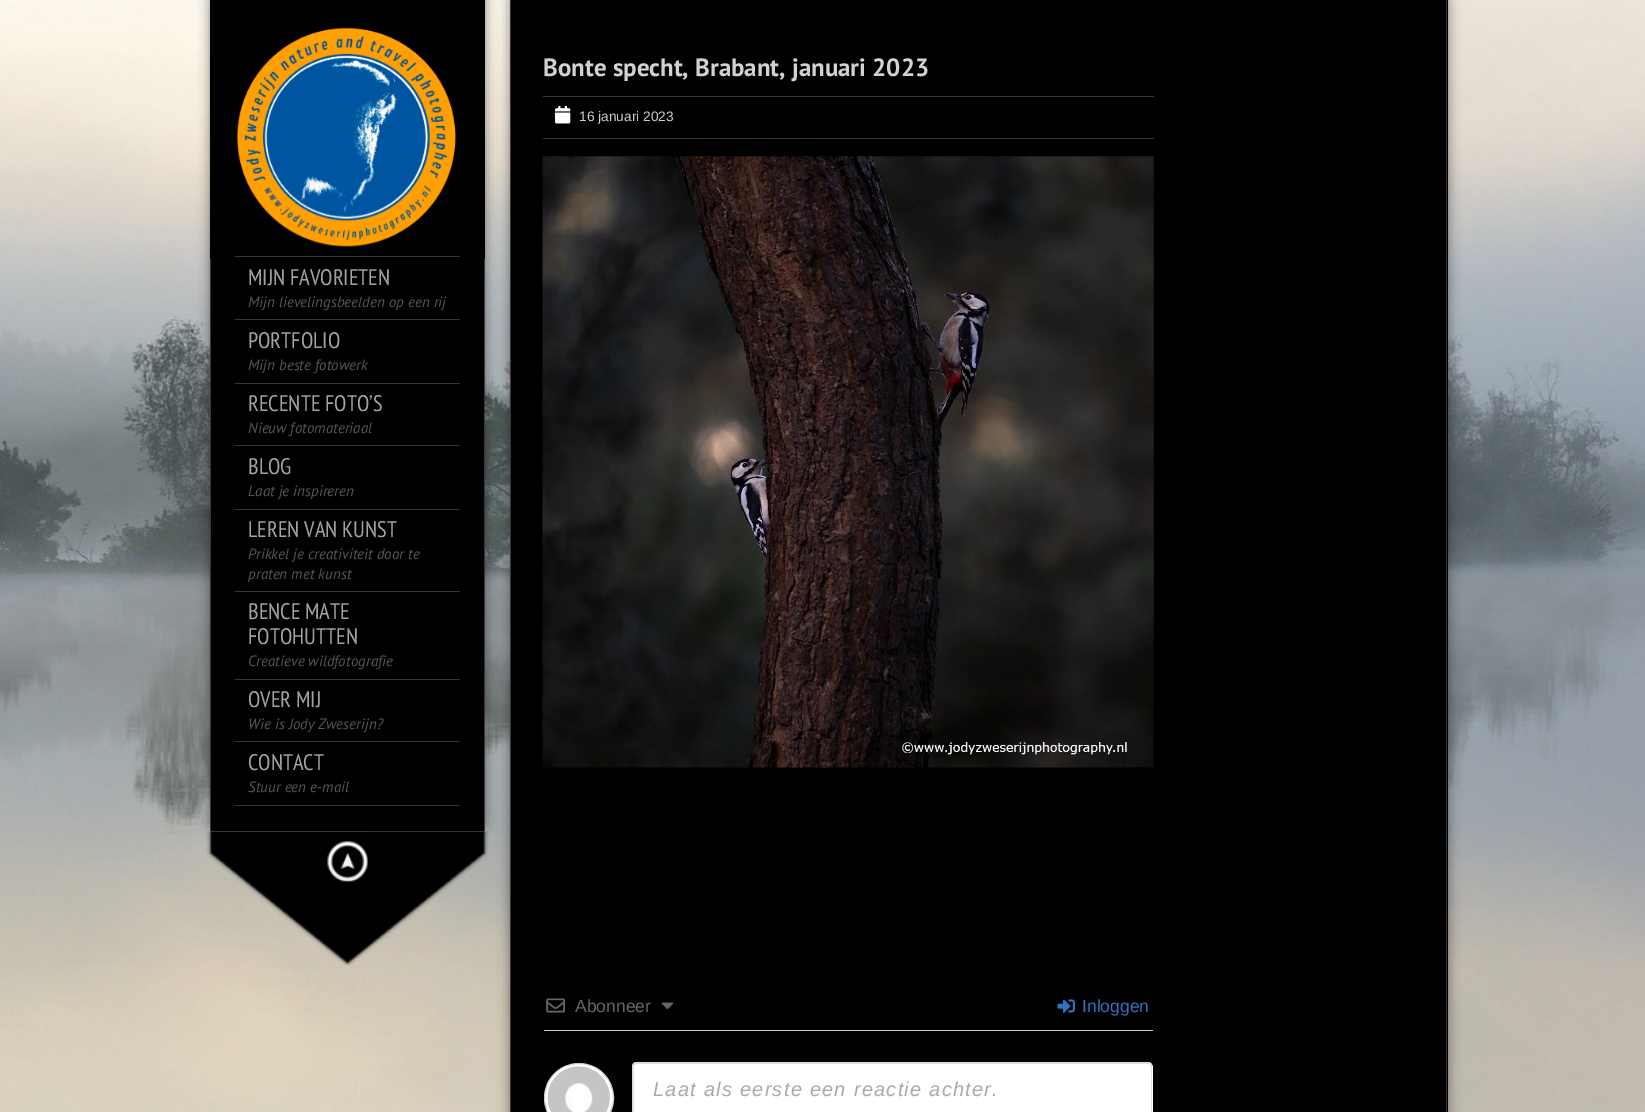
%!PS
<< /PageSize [1645 1112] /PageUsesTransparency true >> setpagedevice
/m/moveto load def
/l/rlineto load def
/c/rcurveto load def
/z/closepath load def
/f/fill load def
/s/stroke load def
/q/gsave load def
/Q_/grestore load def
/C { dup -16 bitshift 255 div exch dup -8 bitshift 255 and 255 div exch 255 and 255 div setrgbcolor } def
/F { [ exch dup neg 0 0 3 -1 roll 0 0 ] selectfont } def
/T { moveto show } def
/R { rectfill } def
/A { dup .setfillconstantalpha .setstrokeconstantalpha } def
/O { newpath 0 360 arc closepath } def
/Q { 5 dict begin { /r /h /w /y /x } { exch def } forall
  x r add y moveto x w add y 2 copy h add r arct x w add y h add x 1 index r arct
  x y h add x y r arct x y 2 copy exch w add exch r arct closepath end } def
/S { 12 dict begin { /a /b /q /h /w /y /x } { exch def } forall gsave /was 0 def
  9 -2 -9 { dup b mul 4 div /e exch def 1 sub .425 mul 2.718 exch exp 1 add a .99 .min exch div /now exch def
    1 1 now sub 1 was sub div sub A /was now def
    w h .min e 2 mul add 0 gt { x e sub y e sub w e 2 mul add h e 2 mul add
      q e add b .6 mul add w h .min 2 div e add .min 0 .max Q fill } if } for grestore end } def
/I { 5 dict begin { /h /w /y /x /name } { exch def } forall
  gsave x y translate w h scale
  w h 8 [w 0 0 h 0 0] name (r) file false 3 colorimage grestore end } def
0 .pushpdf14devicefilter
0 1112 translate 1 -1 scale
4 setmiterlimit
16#FFFFFF C
0 0 1645 1112 R
(1.rgb) 0 0 1645 1112 I
(3.rgb) 206 831 283 135 I
16#111111 C
210 -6 275 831 0 6 .5 S
16#000000 C
211 258 273 573 R
16#393836 C
484 258 1 573 R
210 258 1 573 R
(2.rgb) 210 0 275 259 I
16#343434 C
235 256 225 1 R
235 319 225 1 R
/PTSansNarrow-Regular 22.5 F
16#A3A3A3 C
(MIJN FAVORIETEN) 248 285 T
/PTSans-Italic 15 F
16#555555 C
(Mijn lievelingsbeelden op een rij) 248 307 T
16#343434 C
235 383 225 1 R
/PTSansNarrow-Regular 22.5 F
16#A3A3A3 C
(PORTFOLIO) 248 348 T
/PTSans-Italic 15 F
16#555555 C
(Mijn beste fotowerk) 248 370 T
16#343434 C
235 445 225 1 R
/PTSansNarrow-Regular 22.5 F
16#A3A3A3 C
(RECENTE FOTO’S) 248 411 T
/PTSans-Italic 15 F
16#555555 C
(Nieuw fotomateriaal) 248 433 T
16#343434 C
235 509 225 1 R
/PTSansNarrow-Regular 22.5 F
16#A3A3A3 C
(BLOG) 248 474 T
/PTSans-Italic 15 F
16#555555 C
(Laat je inspireren) 248 496 T
16#343434 C
235 591 225 1 R
/PTSansNarrow-Regular 22.5 F
16#A3A3A3 C
(LEREN VAN KUNST) 248 537 T
/PTSans-Italic 15 F
16#555555 C
(Prikkel je creativiteit door te) 248 559 T
(praten met kunst) 248 579 T
16#343434 C
235 679 225 1 R
/PTSansNarrow-Regular 22.5 F
16#A3A3A3 C
(BENCE MATE) 248 619 T
(FOTOHUTTEN) 248 644 T
/PTSans-Italic 15 F
16#555555 C
(Creatieve wildfotografie) 248 666 T
16#343434 C
235 741 225 1 R
/PTSansNarrow-Regular 22.5 F
16#A3A3A3 C
(OVER MIJ) 248 707 T
/PTSans-Italic 15 F
16#555555 C
(Wie is Jody Zweserijn?) 248 729 T
16#343434 C
235 805 225 1 R
/PTSansNarrow-Regular 22.5 F
16#A3A3A3 C
(CONTACT) 248 770 T
/PTSans-Italic 15 F
16#555555 C
(Stuur een e-mail) 248 792 T
(4.rgb) 327 841 41 41 I
16#111111 C
510 0 938 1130 0 6 .5 S
16#000000 C
511 0 937 1112 R
16#393836 C
1446 0 1 1112 R
510 0 1 1112 R
/PTSans-Bold 25 F
16#D2D2D2 C
(Bonte specht, Brabant, januari 2023) 543 76 T
16#343434 C
543 96 611 1 R
543 138 611 1 R
(5.rgb) 555 106 16 18 I
/LiberationSans-Regular 13.75 F
16#CCCCCC C
(16 januari 2023) 579 121 T
(6.rgb) 542 156 612 612 I
544 1030 609 1 R
(7.rgb) 546 998 19 15 I
/LiberationSans-Regular 17.5 F
16#666666 C
(Abonneer) 575 1012 T
(8.rgb) 661 1002 13 7 I
(9.rgb) 1057 999 18 14 I
16#3272BF C
(Inloggen) 1082 1012 T
16#FFFFFF C
579 1098 34.5 O q f Q_
16#CCCCCC C
s
(10.rgb) 547 1066 63 46 I
16#FFFFFF C
637 1063 m 512 0 l 2 0 4 2 4 4 c 0 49 l -520 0 l 0 -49 l 0 -2 2 -4 4 -4 c z f
16#DDDDDD C
636 1062 m 513 0 l 2 0 3 2 3 4 c 0 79 l -520 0 l 0 -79 l 0 -2 2 -4 4 -4 c z 636 1064 m 513 0 l 1 0 2 1 2 2 c 0 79 l -517 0 l 0 -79 l 0 -1 1 -2 2 -2 c z eofill
/LiberationSans-Italic 20 F
16#AAAAAA C
653 1096 m 1.25 0 (Laat als eerste een reactie achter.) ashow
.poppdf14devicefilter showpage
